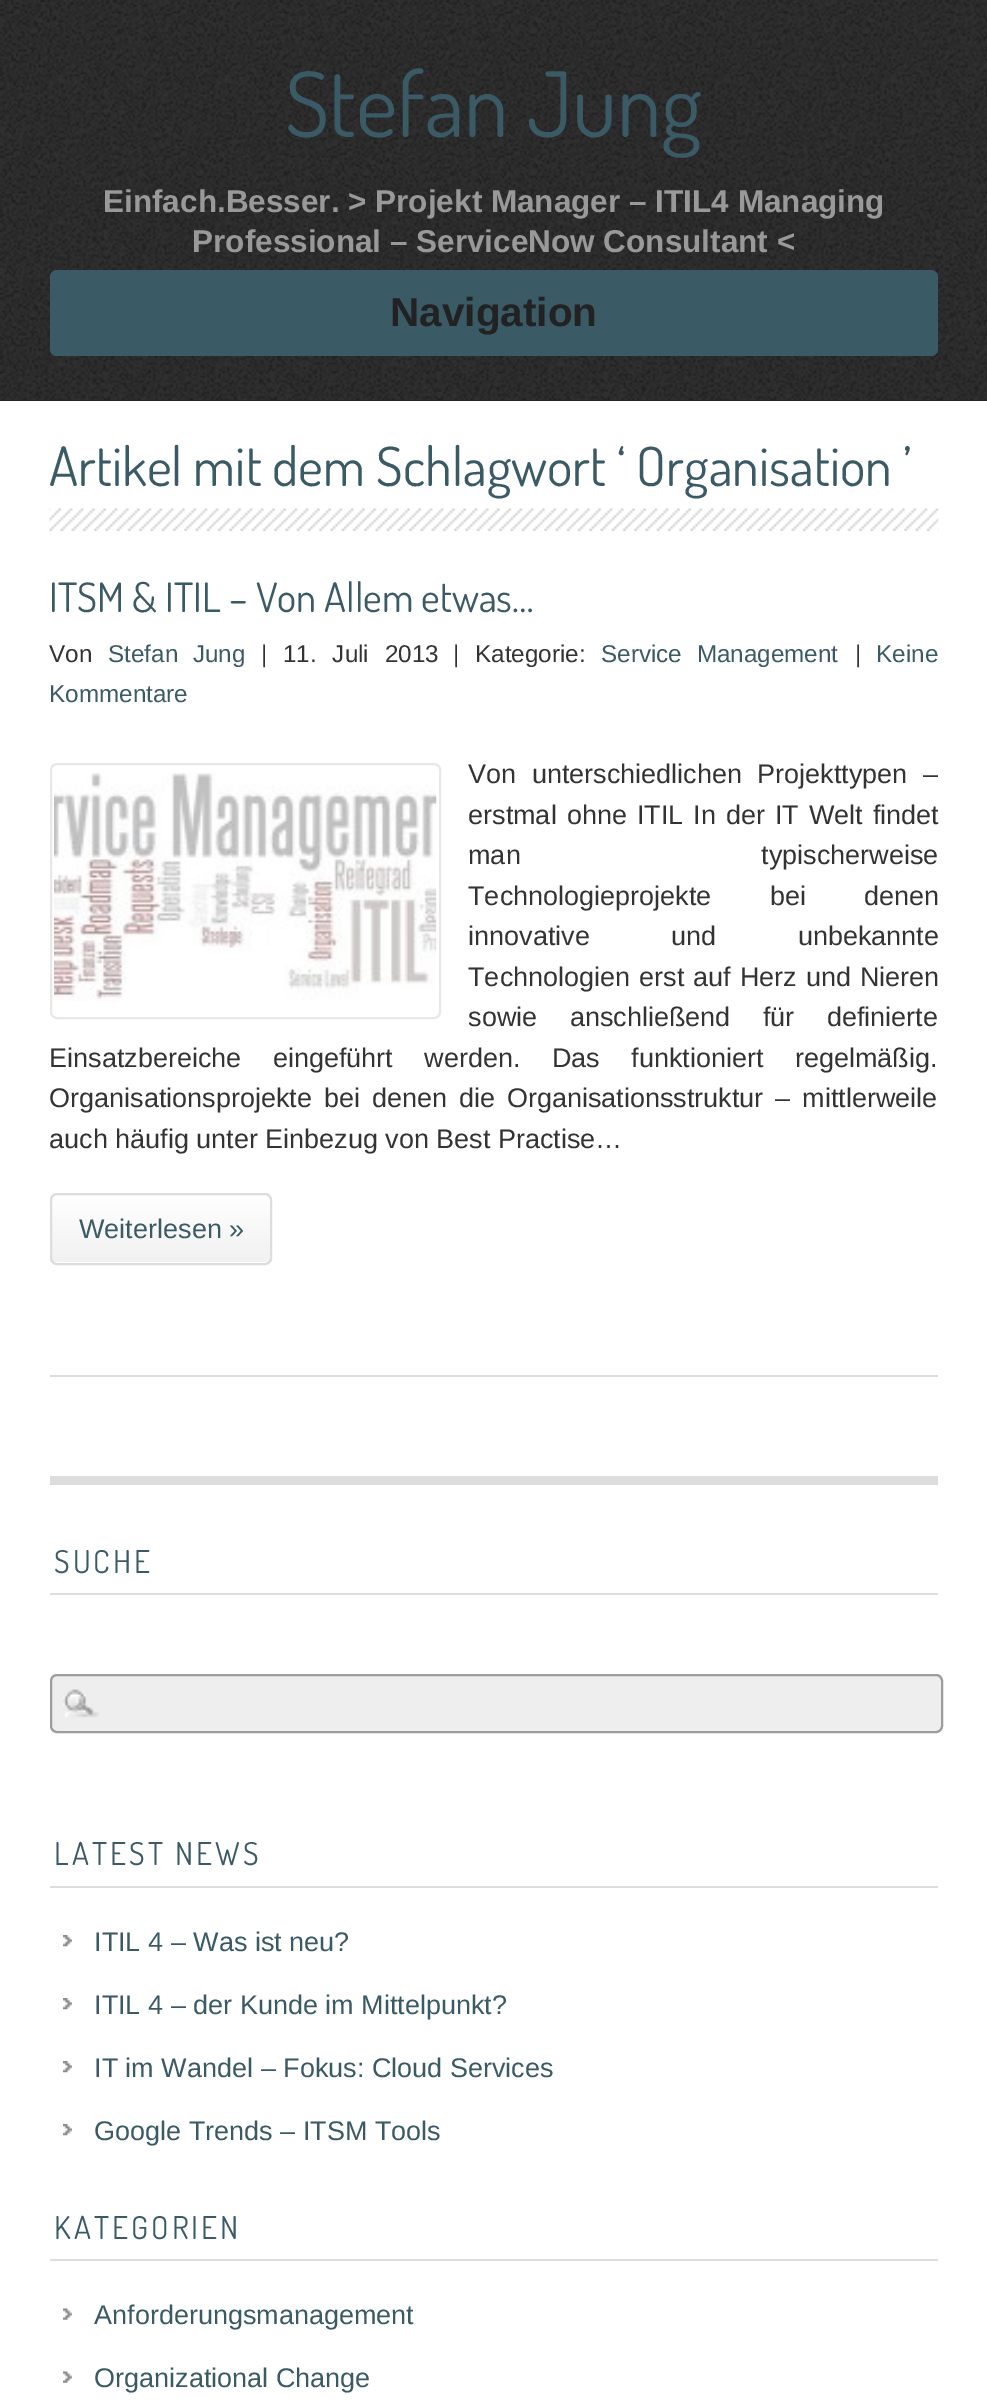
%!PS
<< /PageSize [987 2408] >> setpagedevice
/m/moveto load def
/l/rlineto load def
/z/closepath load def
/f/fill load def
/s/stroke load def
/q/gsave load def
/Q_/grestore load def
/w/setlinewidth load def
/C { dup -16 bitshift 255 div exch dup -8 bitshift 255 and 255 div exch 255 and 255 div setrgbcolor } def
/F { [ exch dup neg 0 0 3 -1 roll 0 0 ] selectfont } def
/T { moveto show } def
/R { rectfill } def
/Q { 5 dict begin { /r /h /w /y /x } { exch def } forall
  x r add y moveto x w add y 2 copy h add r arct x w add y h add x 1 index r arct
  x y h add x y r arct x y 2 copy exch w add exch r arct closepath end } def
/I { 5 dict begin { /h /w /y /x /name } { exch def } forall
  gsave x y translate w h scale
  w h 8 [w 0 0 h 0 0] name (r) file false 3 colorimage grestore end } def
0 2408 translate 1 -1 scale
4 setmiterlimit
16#FFFFFF C
0 0 987 2408 R
16#222222 C
0 0 987 401 R
(1.rgb) 0 0 987 401 I
/Dosis-Regular 90 F
16#3A5A66 C
(Stefan Jung) 285 137 T
/LiberationSans-Bold 31.5 F
16#999999 C
(Einfach.Besser. > Projekt Manager – ITIL4 Managing) 103 212 T
(Professional – ServiceNow Consultant <) 192 252 T
16#3A5A66 C
50 270 888 86 7 Q f
/LiberationSans-Bold 40.5 F
16#222222 C
(Navigation) 390 326 T
(2.rgb) 49 508 890 23 I
/Dosis-Regular 54 F
16#3A5A66 C
(Artikel mit dem Schlagwort ‘ Organisation ’) 49 486 T
/Dosis-Regular 40.5 F
(ITSM & ITIL – Von Allem etwas…) 49 612 T
/LiberationSans-Regular 24.25 F
16#333333 C
(Von) 49 662 T
16#3A5A66 C
108 662 m 8 0 32 (Stefan Jung) widthshow
16#333333 C
(|) 261 662 T
283 662 m 9 0 32 (11. Juli 2013) widthshow
(|) 453 662 T
(Kategorie:) 475 662 T
16#3A5A66 C
601 662 m 8 0 32 (Service Management) widthshow
16#333333 C
(|) 855 662 T
16#3A5A66 C
(Keine) 876 662 T
(Kommentare) 49 702 T
16#E8E8E8 C
2 w
51 764 389 254 6 Q s
(3.rgb) 54 772 383 229 I
/LiberationSans-Regular 27 F
16#333333 C
468 783 m 8 0 32 (Von unterschiedlichen Projekttypen –) widthshow
468 824 m 2.5 0 32 (erstmal ohne ITIL In der IT Welt findet) widthshow
468 864 m 233 0 32 (man typischerweise) widthshow
468 905 m 51 0 32 (Technologieprojekte bei denen) widthshow
468 945 m 74 0 32 (innovative und unbekannte) widthshow
468 986 m 1.5 0 32 (Technologien erst auf Herz und Nieren) widthshow
468 1026 m 25 0 32 (sowie anschließend für definierte) widthshow
49 1067 m 24 0 32 (Einsatzbereiche eingeführt werden. Das funktioniert regelmäßig.) widthshow
49 1107 m 4.5 0 32 (Organisationsprojekte bei denen die Organisationsstruktur – mittlerweile) widthshow
(auch häufig unter Einbezug von Best Practise…) 49 1148 T
q
50 1193 222 72 7 Q clip newpath
q 50 1195 m 222 0 l 0 67 l -222 0 l z clip newpath
<< /ShadingType 2 /ColorSpace /DeviceRGB /Coords [161 1195 161 1262] /Extend [true true] /Function << /FunctionType 2 /Domain [0 1] /C0 [1 1 1] /C1 [.945 .945 .945] /N 1 >> >> shfill Q_
Q_
16#DDDDDD C
51 1194 220 70 6 Q s
16#3A5A66 C
(Weiterlesen ») 79 1238 T
16#DDDDDD C
50 1375 888 2 R
50 1476 888 9 R
50 1593 888 2 R
/Dosis-Regular 31.5 F
16#3A5A66 C
54 1573 m 3.1 0 (SUCHE) ashow
16#EEEEEE C
50 1674 893 59 7 Q f
(4.rgb) 63 1689 36 29 I
16#9D9D9D C
51 1675 891 57 6 Q s
16#DDDDDD C
50 1886 888 2 R
16#3A5A66 C
54 1865 m 3.1 0 (LATEST NEWS) ashow
(5.rgb) 63 1935 9 12 I
/LiberationSans-Regular 27 F
(ITIL 4 – Was ist neu?) 94 1951 T
(5.rgb) 63 1998 9 12 I
(ITIL 4 – der Kunde im Mittelpunkt?) 94 2014 T
(5.rgb) 63 2061 9 12 I
(IT im Wandel – Fokus: Cloud Services) 94 2077 T
(5.rgb) 63 2124 9 12 I
(Google Trends – ITSM Tools) 94 2140 T
16#DDDDDD C
50 2259 888 2 R
/Dosis-Regular 31.5 F
16#3A5A66 C
54 2239 m 3.1 0 (KATEGORIEN) ashow
(6.rgb) 63 2308 9 12 I
/LiberationSans-Regular 27 F
(Anforderungsmanagement) 94 2324 T
(6.rgb) 63 2371 9 12 I
(Organizational Change) 94 2387 T
showpage
